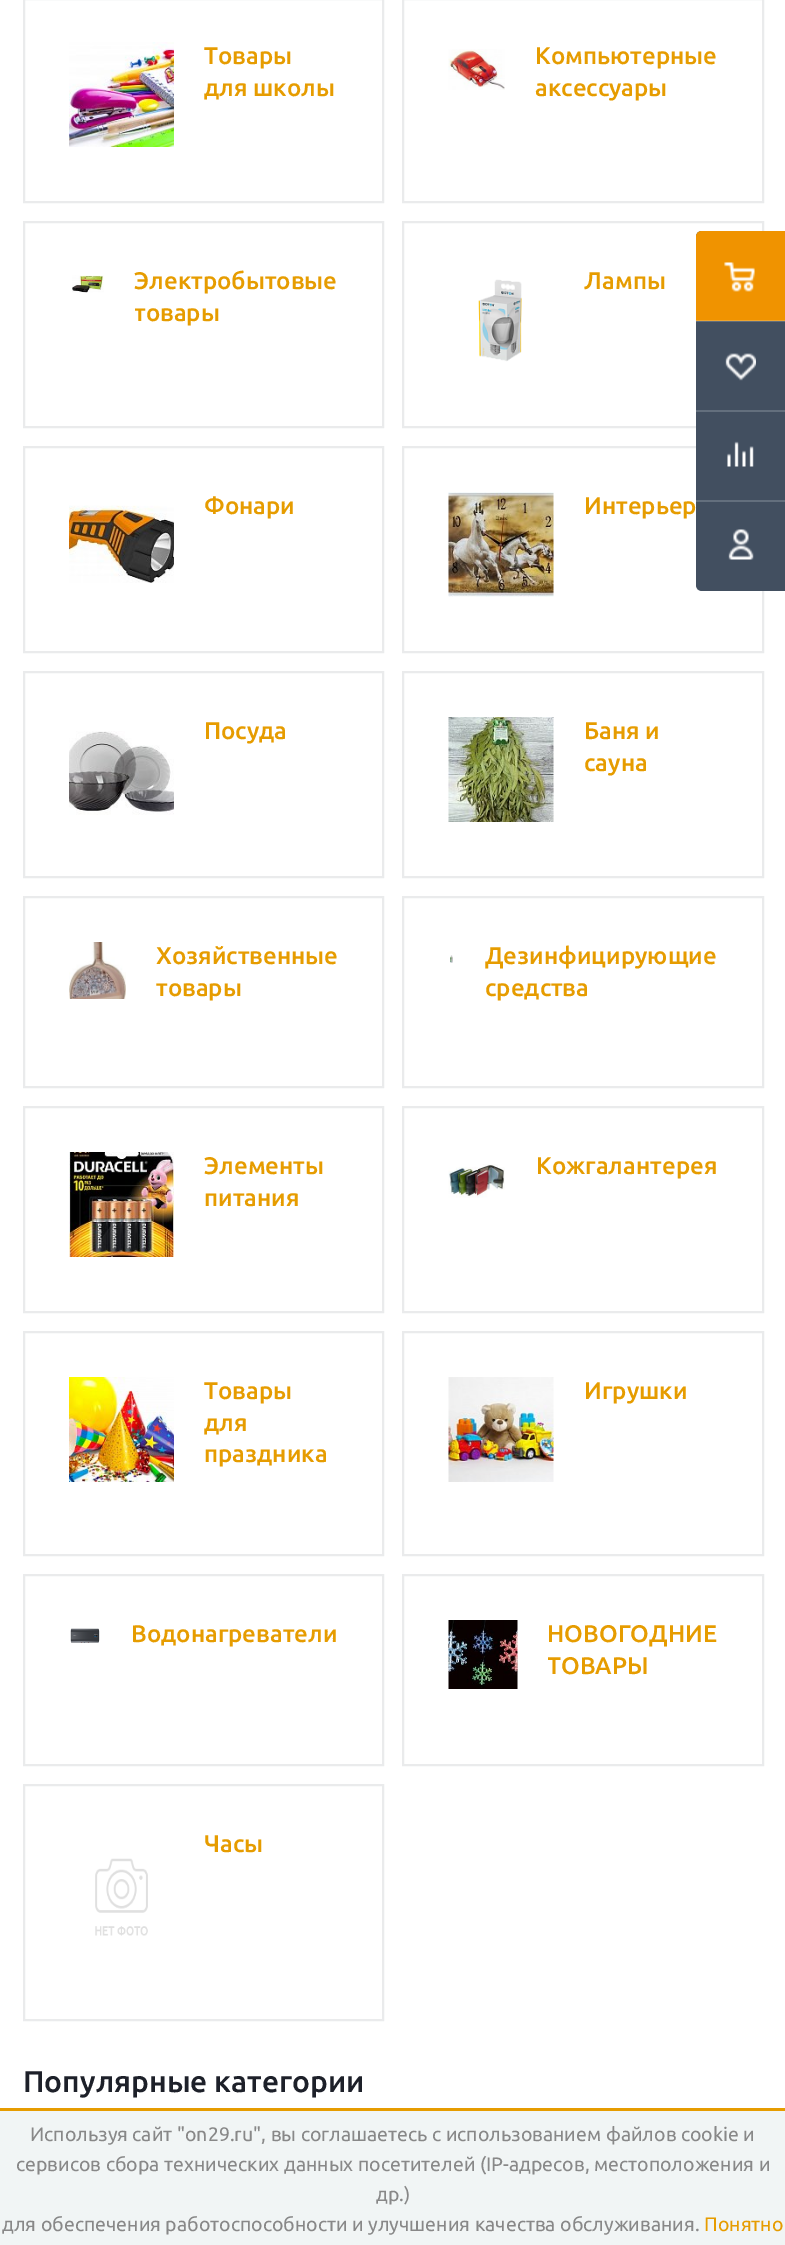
%!PS
<< /PageSize [785 2245] /PageUsesTransparency true >> setpagedevice
/m/moveto load def
/l/rlineto load def
/c/rcurveto load def
/z/closepath load def
/f/fill load def
/q/gsave load def
/Q_/grestore load def
/w/setlinewidth load def
/C { dup -16 bitshift 255 div exch dup -8 bitshift 255 and 255 div exch 255 and 255 div setrgbcolor } def
/F { [ exch dup neg 0 0 3 -1 roll 0 0 ] selectfont } def
/T { moveto show } def
/R { rectfill } def
/A { dup .setfillconstantalpha .setstrokeconstantalpha } def
/I { 5 dict begin { /h /w /y /x /name } { exch def } forall
  gsave x y translate w h scale
  w h 8 [w 0 0 h 0 0] name (r) file false 3 colorimage grestore end } def
0 .pushpdf14devicefilter
0 2245 translate 1 -1 scale
4 setmiterlimit
16#FFFFFF C
0 0 785 2245 R
16#EAEBEC C
2 w
24 -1 359 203 rectstroke
(1.rgb) 69 42 105 105 I
/Ubuntu-Medium 24 F
16#E69C00 C
(Товары) 204 64 T
(для школы) 204 96 T
16#EAEBEC C
403 -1 360 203 rectstroke
(2.rgb) 448 49 57 41 I
16#E69C00 C
(Компьютерные) 535 64 T
(аксессуары) 535 96 T
16#EAEBEC C
24 222 359 205 rectstroke
(3.rgb) 72 275 32 18 I
16#E69C00 C
(Электробытовые) 134 289 T
q
135 267 203 71 rectclip
(товары) 134 321 T
Q_
16#EAEBEC C
403 222 360 205 rectstroke
(4.rgb) 478 279 44 83 I
16#E69C00 C
(Лампы) 584 289 T
16#EAEBEC C
24 447 359 205 rectstroke
(5.rgb) 69 505 105 78 I
16#E69C00 C
(Фонари) 204 514 T
16#EAEBEC C
403 447 360 205 rectstroke
(6.rgb) 448 492 106 105 I
16#E69C00 C
(Интерьер) 584 514 T
16#EAEBEC C
24 672 359 205 rectstroke
(7.rgb) 69 731 105 84 I
16#E69C00 C
(Посуда) 204 739 T
16#EAEBEC C
403 672 360 205 rectstroke
(8.rgb) 448 717 106 105 I
16#E69C00 C
(Баня и) 584 739 T
(сауна) 584 771 T
16#EAEBEC C
24 897 359 190 rectstroke
(9.rgb) 69 942 57 57 I
16#E69C00 C
(Хозяйственные) 156 964 T
(товары) 156 996 T
16#EAEBEC C
403 897 360 190 rectstroke
(10.rgb) 450 955 3 8 I
16#E69C00 C
(Дезинфицирующие) 485 964 T
(средства) 485 996 T
16#EAEBEC C
24 1107 359 205 rectstroke
(11.rgb) 69 1152 105 105 I
16#E69C00 C
(Элементы) 204 1174 T
(питания) 204 1206 T
16#EAEBEC C
403 1107 360 205 rectstroke
(12.rgb) 448 1164 57 34 I
16#E69C00 C
(Кожгалантерея) 536 1174 T
16#EAEBEC C
24 1332 359 223 rectstroke
(13.rgb) 69 1377 105 105 I
16#E69C00 C
(Товары) 204 1399 T
(для) 204 1431 T
(праздника) 204 1462 T
16#EAEBEC C
403 1332 360 223 rectstroke
(14.rgb) 448 1377 106 105 I
16#E69C00 C
(Игрушки) 584 1399 T
16#EAEBEC C
24 1575 359 190 rectstroke
(15.rgb) 70 1628 30 15 I
16#E69C00 C
(Водонагреватели) 131 1642 T
16#EAEBEC C
403 1575 360 190 rectstroke
(16.rgb) 448 1620 70 69 I
16#E69C00 C
(НОВОГОДНИЕ) 547 1642 T
q
548 1620 169 71 rectclip
(ТОВАРЫ) 547 1674 T
Q_
16#EAEBEC C
24 1785 359 235 rectstroke
16#E69C00 C
(Часы) 204 1852 T
(17.rgb) 95 1858 53 78 I
/Ubuntu-Medium 30 F
16#1D2029 C
(Популярные категории) 23 2092 T
16#424F60 C
702 231 m 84 0 l 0 360 l -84 0 l -3.5 0 -6 -2.5 -6 -6 c 0 -348 l 0 -3.5 2.5 -6 6 -6 c z f
16#F09300 C
702 231 m 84 0 l 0 90 l -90 0 l 0 -84 l 0 -3.5 2.5 -6 6 -6 c z f
(18.rgb) 724 262 31 30 I
0.2 A
16#E7EDF2 C
696 320 89 2 R
1 A
(19.rgb) 725 353 31 28 I
16#636F7D C
696 410 89 2 R
(20.rgb) 727 441 27 26 I
696 500 89 2 R
(21.rgb) 728 529 26 31 I
16#F1F5F5 C
0 2111 785 134 R
16#E69C00 C
0 2108 785 3 R
/Ubuntu-Regular 19.5 F
16#888888 C
(Используя сайт "on29.ru", вы соглашаетесь с использованием файлов cookie и) 30 2141 T
(сервисов сбора технических данных посетителей \(IP-адресов, местоположения и) 16 2171 T
(др.\)) 376 2201 T
(для обеспечения работоспособности и улучшения качества обслуживания.) 2 2231 T
16#E69C00 C
(Понятно) 704 2231 T
.poppdf14devicefilter showpage
